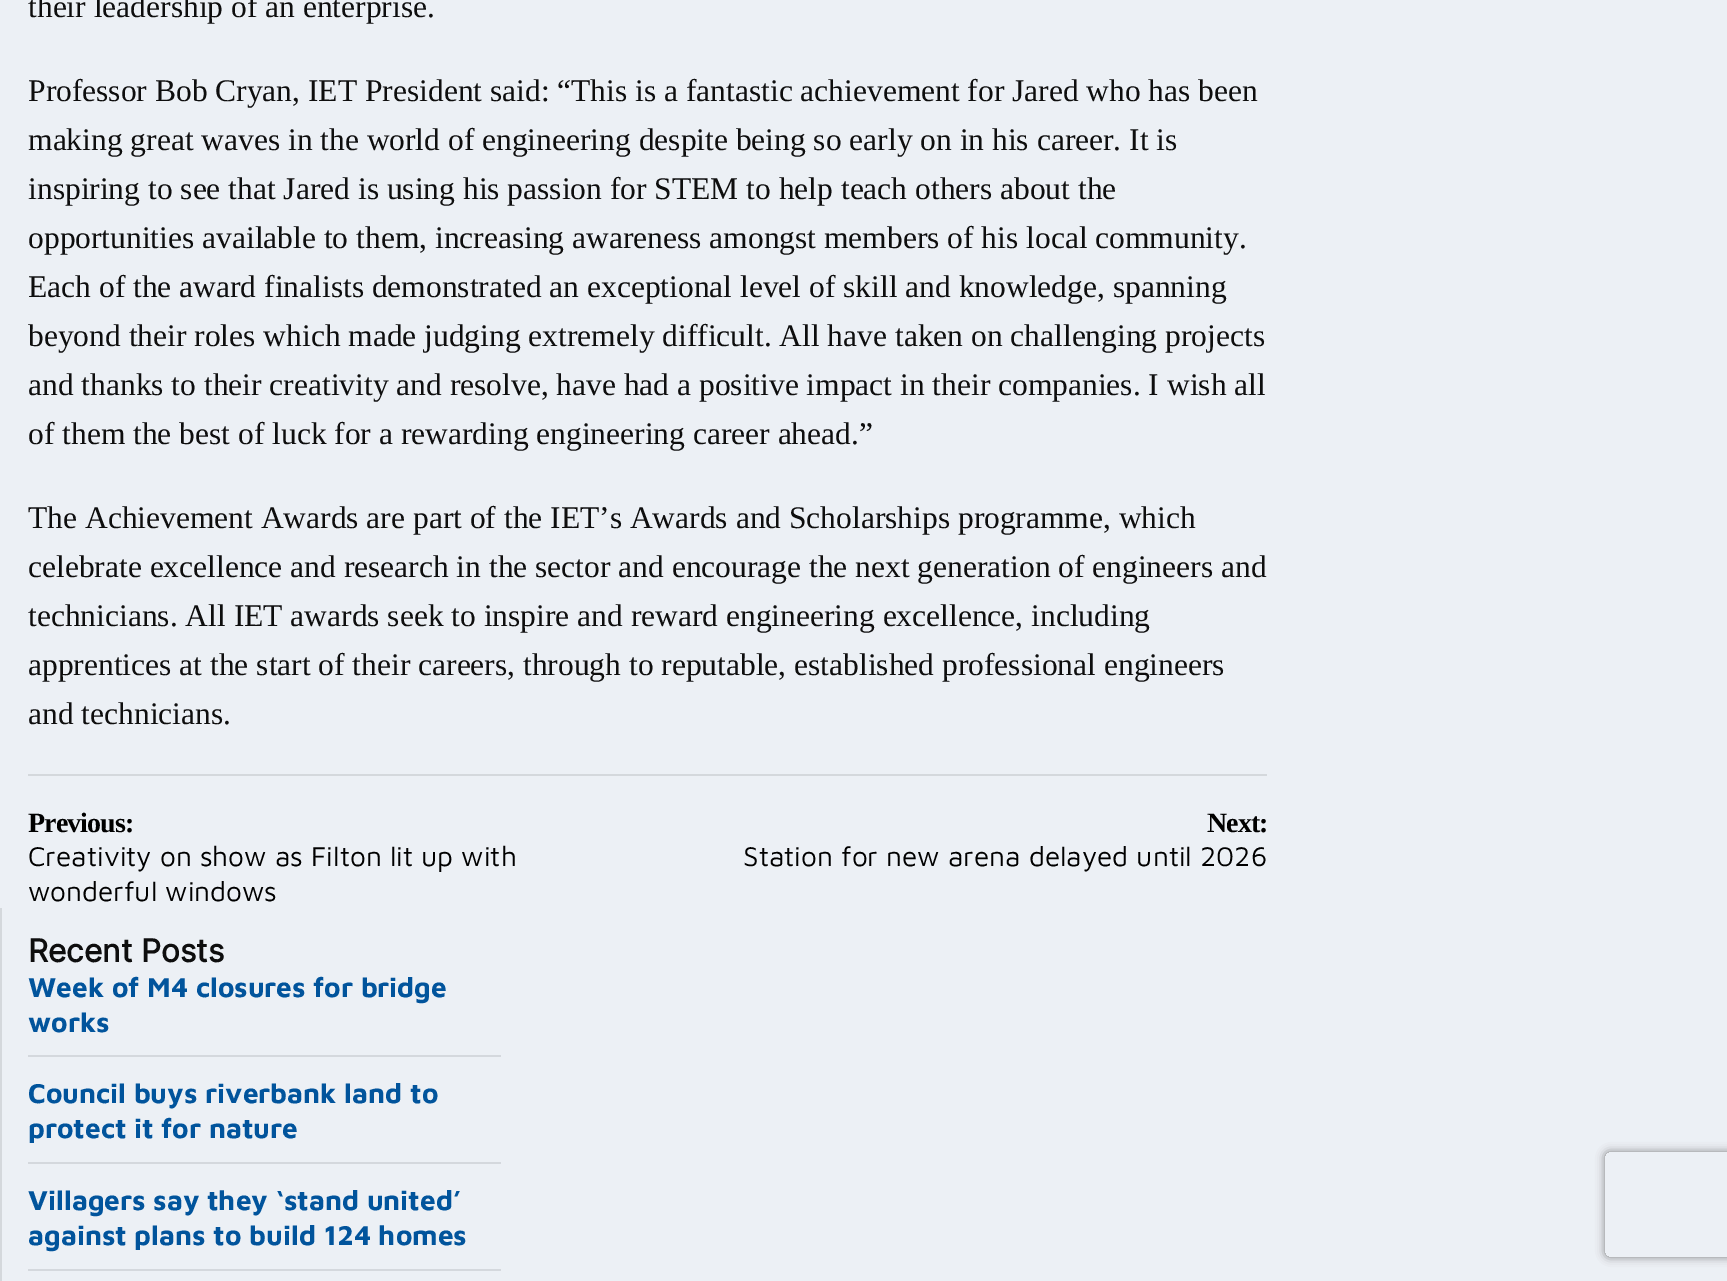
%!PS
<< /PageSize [1727 1281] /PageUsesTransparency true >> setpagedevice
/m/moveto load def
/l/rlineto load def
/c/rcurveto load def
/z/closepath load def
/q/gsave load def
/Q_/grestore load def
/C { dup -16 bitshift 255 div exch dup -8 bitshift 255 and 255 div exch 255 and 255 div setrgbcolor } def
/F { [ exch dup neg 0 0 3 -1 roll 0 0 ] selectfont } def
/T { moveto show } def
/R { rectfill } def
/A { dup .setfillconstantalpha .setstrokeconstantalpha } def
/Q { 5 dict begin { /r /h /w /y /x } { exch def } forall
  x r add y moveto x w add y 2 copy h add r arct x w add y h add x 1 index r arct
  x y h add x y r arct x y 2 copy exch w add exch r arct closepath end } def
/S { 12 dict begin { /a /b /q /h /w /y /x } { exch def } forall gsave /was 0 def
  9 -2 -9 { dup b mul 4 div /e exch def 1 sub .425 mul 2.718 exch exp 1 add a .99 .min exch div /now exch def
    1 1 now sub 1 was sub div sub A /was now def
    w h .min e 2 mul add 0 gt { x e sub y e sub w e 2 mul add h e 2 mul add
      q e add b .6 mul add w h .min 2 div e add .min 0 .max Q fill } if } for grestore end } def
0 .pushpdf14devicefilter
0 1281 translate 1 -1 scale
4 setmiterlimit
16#ECF0F5 C
0 0 1727 1281 R
/LiberationSerif-Regular 31.5 F
16#0E0E0E C
(their leadership of an enterprise.) 28 17 T
(Professor Bob Cryan, IET President said: “This is a fantastic achievement for Jared who has been) 28 101 T
(making great waves in the world of engineering despite being so early on in his career. It is) 28 150 T
(inspiring to see that Jared is using his passion for STEM to help teach others about the) 28 199 T
(opportunities available to them, increasing awareness amongst members of his local community.) 28 248 T
(Each of the award finalists demonstrated an exceptional level of skill and knowledge, spanning) 28 297 T
(beyond their roles which made judging extremely difficult. All have taken on challenging projects) 28 346 T
(and thanks to their creativity and resolve, have had a positive impact in their companies. I wish all) 28 395 T
(of them the best of luck for a rewarding engineering career ahead.”) 28 444 T
(The Achievement Awards are part of the IET’s Awards and Scholarships programme, which) 28 528 T
(celebrate excellence and research in the sector and encourage the next generation of engineers and) 28 577 T
(technicians. All IET awards seek to inspire and reward engineering excellence, including) 28 626 T
(apprentices at the start of their careers, through to reputable, established professional engineers) 28 675 T
(and technicians.) 28 724 T
16#D4D8DC C
28 774 1239 2 R
/LiberationSerif-Bold 28 F
16#000000 C
28 832 m -.9 0 (Previous:) ashow
/MavenPro-Regular 28 F
(Creativity on show as Filton lit up with) 28 866 T
(wonderful windows) 28 901 T
/LiberationSerif-Bold 28 F
1207 832 m -.9 0 (Next:) ashow
/MavenPro-Regular 28 F
(Station for new arena delayed until 2026) 743 866 T
16#D4D8DC C
0 908 2 373 R
/Inter-Bold 31.5 F
16#0E0E0E C
(Recent Posts) 28 962 T
16#D4D8DD C
28 1055 473 2 R
/MavenPro-Bold 28 F
16#01549C C
(Week of M4 closures for bridge) 28 997 T
(works) 28 1032 T
16#D4D8DD C
28 1162 473 2 R
16#01549C C
(Council buys riverbank land to) 28 1103 T
(protect it for nature) 28 1138 T
16#D4D8DD C
28 1269 473 2 R
16#01549C C
(Villagers say they ‘stand united’) 28 1210 T
(against plans to build 124 homes) 28 1245 T
q
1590 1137 m 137 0 l 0 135 l -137 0 l z 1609 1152 m 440 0 l 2 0 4 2 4 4 c 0 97 l 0 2 -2 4 -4 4 c -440 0 l -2 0 -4 -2 -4 -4 c 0 -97 l 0 -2 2 -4 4 -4 c z eoclip newpath
16#808080 C
1605 1152 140 105 4 4.5 1 S
Q_
.poppdf14devicefilter showpage
